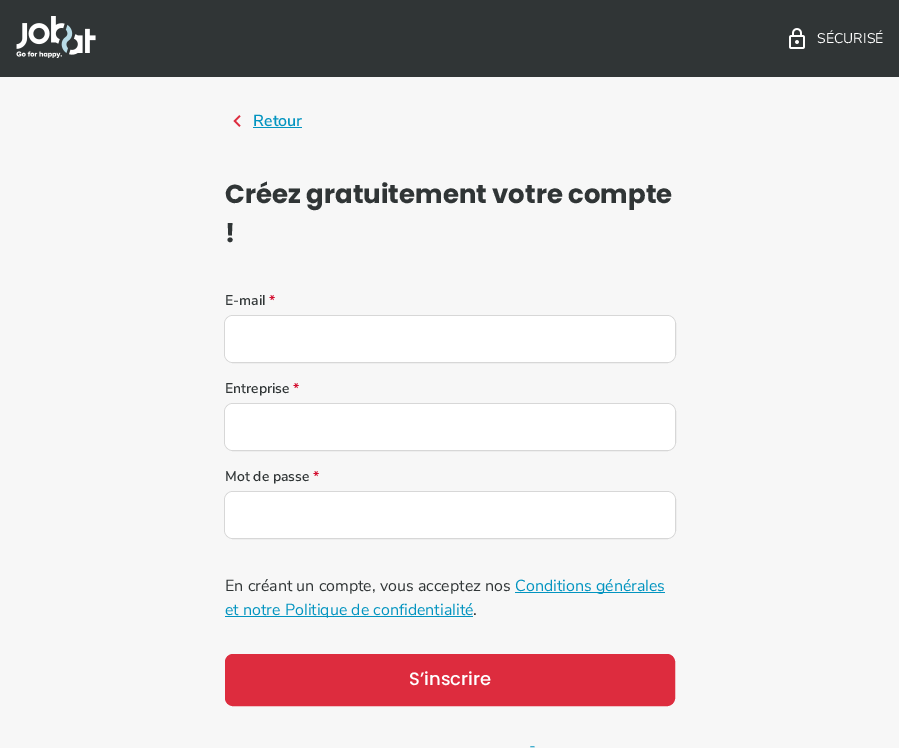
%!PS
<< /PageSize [899 748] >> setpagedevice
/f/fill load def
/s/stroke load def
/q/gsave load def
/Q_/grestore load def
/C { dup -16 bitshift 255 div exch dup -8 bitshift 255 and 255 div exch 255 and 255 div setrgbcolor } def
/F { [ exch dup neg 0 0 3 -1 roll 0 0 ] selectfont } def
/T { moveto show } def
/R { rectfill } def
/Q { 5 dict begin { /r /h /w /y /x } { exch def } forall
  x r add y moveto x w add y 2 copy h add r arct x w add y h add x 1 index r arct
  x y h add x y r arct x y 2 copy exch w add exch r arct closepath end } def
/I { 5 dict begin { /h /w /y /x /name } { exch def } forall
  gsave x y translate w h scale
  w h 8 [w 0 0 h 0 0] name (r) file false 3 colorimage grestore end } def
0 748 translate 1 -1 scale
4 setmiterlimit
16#F7F7F7 C
0 0 899 748 R
16#303536 C
0 0 899 77 R
(1.rgb) 16 16 80 42 I
(2.rgb) 789 28 16 21 I
/NunitoSans-Regular 14 F
16#FFFFFF C
(SÉCURISÉ) 817 43 T
(3.rgb) 233 115 8 12 I
/NunitoSans-SemiBold 16 F
16#0294C0 C
(Retour) 253 126 T
253 127 49 1 R
/Poppins-Bold 26 F
16#303536 C
(Créez gratuitement votre compte) 225 203 T
(!) 225 242 T
/NunitoSans-SemiBold 14 F
(E-mail) 225 305 T
16#D10023 C
(*) 269 305 T
16#D7D7D7 C
224.5 315.5 451 47 8.5 Q s
16#FFFFFF C
225 316 450 46 8 Q f
16#303536 C
(Entreprise) 225 393 T
16#D10023 C
(*) 293 393 T
16#D7D7D7 C
224.5 403.5 451 47 8.5 Q s
16#FFFFFF C
225 404 450 46 8 Q f
16#303536 C
(Mot de passe) 225 481 T
16#D10023 C
(*) 313 481 T
16#D7D7D7 C
224.5 491.5 451 47 8.5 Q s
16#FFFFFF C
225 492 450 46 8 Q f
/NunitoSans-Regular 16 F
16#303536 C
(En créant un compte, vous acceptez nos) 225 591 T
16#0294C0 C
515 592 150 1 R
(Conditions générales) 515 591 T
225 616 248 1 R
(et notre Politique de confidentialité) 225 615 T
16#303536 C
(.) 473 615 T
16#DD2C3E C
225.5 654.5 449 51 7.5 Q q f Q_
s
/Poppins-Medium 18 F
16#FFFFFF C
(S’inscrire) 409 685 T
/NunitoSans-Regular 16 F
16#0294C0 C
(-) 529 751 T
showpage
